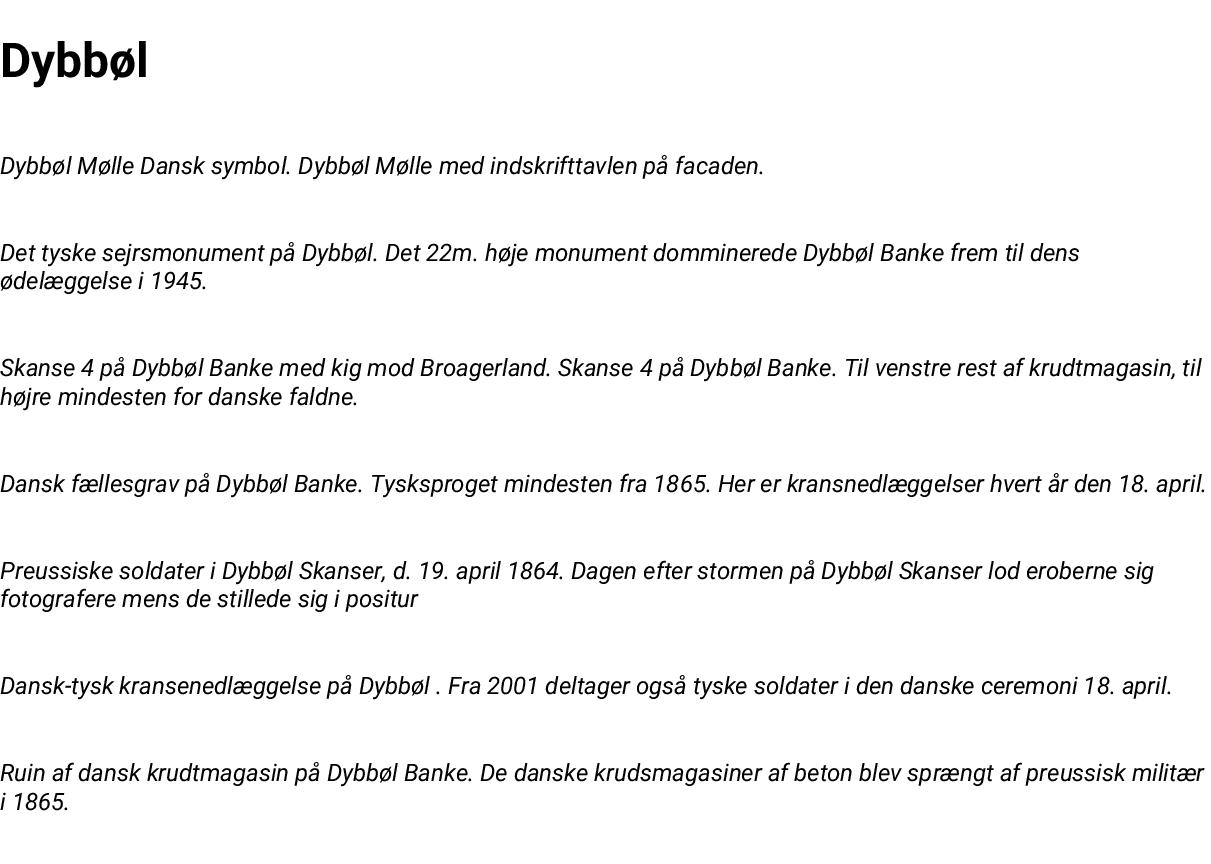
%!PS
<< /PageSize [1211 864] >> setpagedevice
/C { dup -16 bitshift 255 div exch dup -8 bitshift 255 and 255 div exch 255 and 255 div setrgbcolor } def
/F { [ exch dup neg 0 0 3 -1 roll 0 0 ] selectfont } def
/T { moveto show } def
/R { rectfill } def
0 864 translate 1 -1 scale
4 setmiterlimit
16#FFFFFF C
0 0 1211 864 R
/Roboto-Bold 48 F
16#000000 C
(Dybbøl) 0 77 T
/Roboto-Italic 24 F
(Dybbøl Mølle Dansk symbol. Dybbøl Mølle med indskrifttavlen på facaden.) 0 174 T
(Det tyske sejrsmonument på Dybbøl. Det 22m. høje monument domminerede Dybbøl Banke frem til dens) 0 261 T
(ødelæggelse i 1945.) 0 289 T
(Skanse 4 på Dybbøl Banke med kig mod Broagerland. Skanse 4 på Dybbøl Banke. Til venstre rest af krudtmagasin, til) 0 376 T
(højre mindesten for danske faldne.) 0 405 T
(Dansk fællesgrav på Dybbøl Banke. Tysksproget mindesten fra 1865. Her er kransnedlæggelser hvert år den 18. april.) 0 492 T
(Preussiske soldater i Dybbøl Skanser, d. 19. april 1864. Dagen efter stormen på Dybbøl Skanser lod eroberne sig) 0 579 T
(fotografere mens de stillede sig i positur) 0 607 T
(Dansk-tysk kransenedlæggelse på Dybbøl . Fra 2001 deltager også tyske soldater i den danske ceremoni 18. april.) 0 694 T
(Ruin af dansk krudtmagasin på Dybbøl Banke. De danske krudsmagasiner af beton blev sprængt af preussisk militær) 0 781 T
(i 1865.) 0 810 T
showpage
